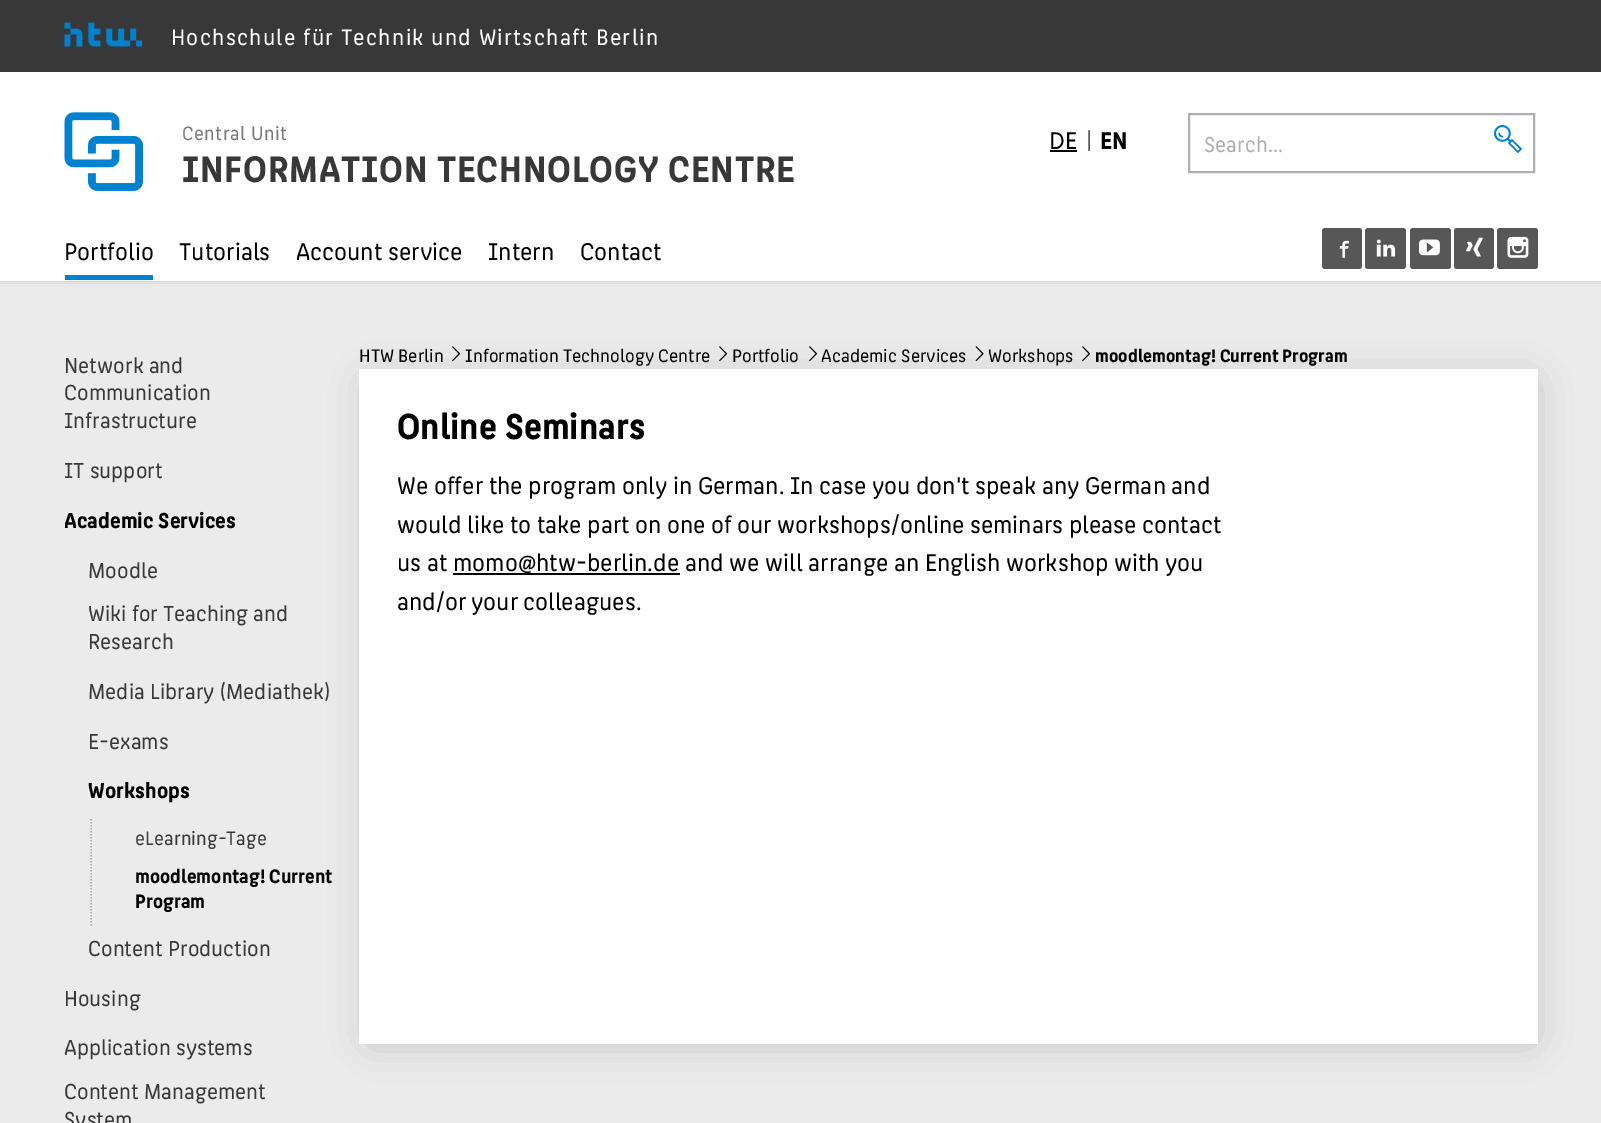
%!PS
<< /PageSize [1601 1123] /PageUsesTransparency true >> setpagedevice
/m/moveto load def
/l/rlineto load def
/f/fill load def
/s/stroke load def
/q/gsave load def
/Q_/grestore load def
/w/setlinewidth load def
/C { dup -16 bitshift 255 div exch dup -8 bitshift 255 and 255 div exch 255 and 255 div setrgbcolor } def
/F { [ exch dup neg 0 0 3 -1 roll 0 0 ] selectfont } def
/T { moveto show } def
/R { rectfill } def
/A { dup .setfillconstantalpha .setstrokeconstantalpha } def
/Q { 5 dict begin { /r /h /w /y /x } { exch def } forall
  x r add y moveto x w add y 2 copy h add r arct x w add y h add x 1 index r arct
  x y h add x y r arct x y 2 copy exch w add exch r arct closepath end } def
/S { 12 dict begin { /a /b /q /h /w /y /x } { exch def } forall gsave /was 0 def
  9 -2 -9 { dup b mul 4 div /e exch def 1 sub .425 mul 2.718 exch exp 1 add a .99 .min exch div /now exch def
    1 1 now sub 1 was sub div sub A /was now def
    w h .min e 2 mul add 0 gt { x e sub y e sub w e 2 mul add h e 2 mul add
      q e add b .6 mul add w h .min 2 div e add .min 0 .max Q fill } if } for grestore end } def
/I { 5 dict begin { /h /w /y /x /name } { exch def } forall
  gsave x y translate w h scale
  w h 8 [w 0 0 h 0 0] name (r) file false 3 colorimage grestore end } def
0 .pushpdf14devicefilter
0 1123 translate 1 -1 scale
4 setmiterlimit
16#FFFFFF C
0 0 1601 1123 R
16#D8D8D8 C
0 281 1601 1 R
16#383838 C
0 0 1601 72 R
(1.rgb) 64 22 79 25 I
/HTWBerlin-Regular 23.9 F
16#FFFFFF C
171 45 m 1.2 0 (Hochschule für Technik und Wirtschaft Berlin) ashow
(2.rgb) 64 112 79 79 I
/HTWBerlin-Regular 20.5 F
16#787878 C
182 140 m .5 0 (Central Unit) ashow
/HTWBerlin-Bold 39.25 F
16#383838 C
182 182 m .8 0 (INFORMATION TECHNOLOGY CENTRE) ashow
/HTWBerlin-Regular 25.7 F
16#000000 C
(DE) 1049 149 T
1050 150 27 2 R
16#575757 C
(|) 1086 149 T
/HTWBerlin-Bold 25.7 F
16#000000 C
(EN) 1100 149 T
16#AFAFAF C
2 w
1189 114 345 58 rectstroke
/HTWBerlin-Regular 23.1 F
(Search...) 1204 152 T
(3.rgb) 1494 125 29 29 I
/HTWBerlin-Regular 25.7 F
16#000000 C
(Portfolio) 64 260 T
16#0082D1 C
65 275 88 5 R
16#000000 C
(Tutorials) 179 260 T
(Account service) 296 260 T
(Intern) 488 260 T
(Contact) 580 260 T
16#575757 C
1322 228 40 41 3 Q f
(4.rgb) 1339 240 10 18 I
1365 228 41 41 3 Q f
(5.rgb) 1376 239 20 18 I
1410 228 41 41 3 Q f
(6.rgb) 1419 239 21 17 I
1454 228 40 41 3 Q f
(7.rgb) 1466 237 17 20 I
1497 228 41 41 3 Q f
(8.rgb) 1507 236 22 22 I
16#EBEBEB C
0 287 1601 836 R
16#E2E2E2 C
0 282 1601 2 R
16#E8E8E8 C
0 284 1601 3 R
/HTWBerlin-Regular 23.1 F
16#383838 C
(Network and) 64 373 T
(Communication) 64 400 T
(Infrastructure) 64 428 T
(IT support) 64 478 T
q
65 312 294 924 rectclip
/HTWBerlin-Bold 23.1 F
16#000000 C
(Academic Services) 64 528 T
Q_
(Moodle) 88 578 T
(Wiki for Teaching and) 88 621 T
(Research) 88 649 T
16#000000 C
372 384 1158 654 0 20 .22 S
16#383838 C
(Media Library \(Mediathek\)) 88 699 T
(E-exams) 88 749 T
/HTWBerlin-Bold 23.1 F
16#000000 C
(Workshops) 88 798 T
16#AFAFAF C
1.5 w
[1.5 1.5] 0 setdash
91 819 m 0 108 l s
/HTWBerlin-Regular 20.75 F
16#383838 C
(eLearning-Tage) 135 845 T
/HTWBerlin-Bold 20.75 F
16#000000 C
(moodlemontag! Current) 135 883 T
(Program) 135 908 T
/HTWBerlin-Regular 23.1 F
16#383838 C
(Content Production) 88 956 T
(Housing) 64 1006 T
(Application systems) 64 1055 T
(Content Management) 64 1099 T
(System) 64 1127 T
/HTWBerlin-Regular 19.25 F
16#000000 C
(HTW Berlin) 359 362 T
(9.rgb) 452 346 9 16 I
(Information Technology Centre) 465 362 T
(9.rgb) 719 346 9 16 I
(Portfolio) 732 362 T
(9.rgb) 809 346 9 16 I
(Academic Services) 821 362 T
(10.rgb) 975 346 9 16 I
(Workshops) 988 362 T
(9.rgb) 1082 346 9 16 I
/HTWBerlin-Bold 19.25 F
(moodlemontag! Current Program) 1095 362 T
16#FFFFFF C
359 369 1179 675 R
/HTWBerlin-Bold 38.5 F
16#000000 C
(Online Seminars) 397 439 T
/HTWBerlin-Regular 25.7 F
397 494 m -.25 0 32 (We offer the program only in German. In case you don't speak any German and) widthshow
397 533 m -.25 0 32 (would like to take part on one of our workshops/online seminars please contact) widthshow
(us at) 397 571 T
453 573 227 2 R
(momo@htw-berlin.de) 453 571 T
685 571 m -.25 0 32 (and we will arrange an English workshop with you) widthshow
397 610 m -1 0 32 (and/or your colleagues.) widthshow
.poppdf14devicefilter showpage
